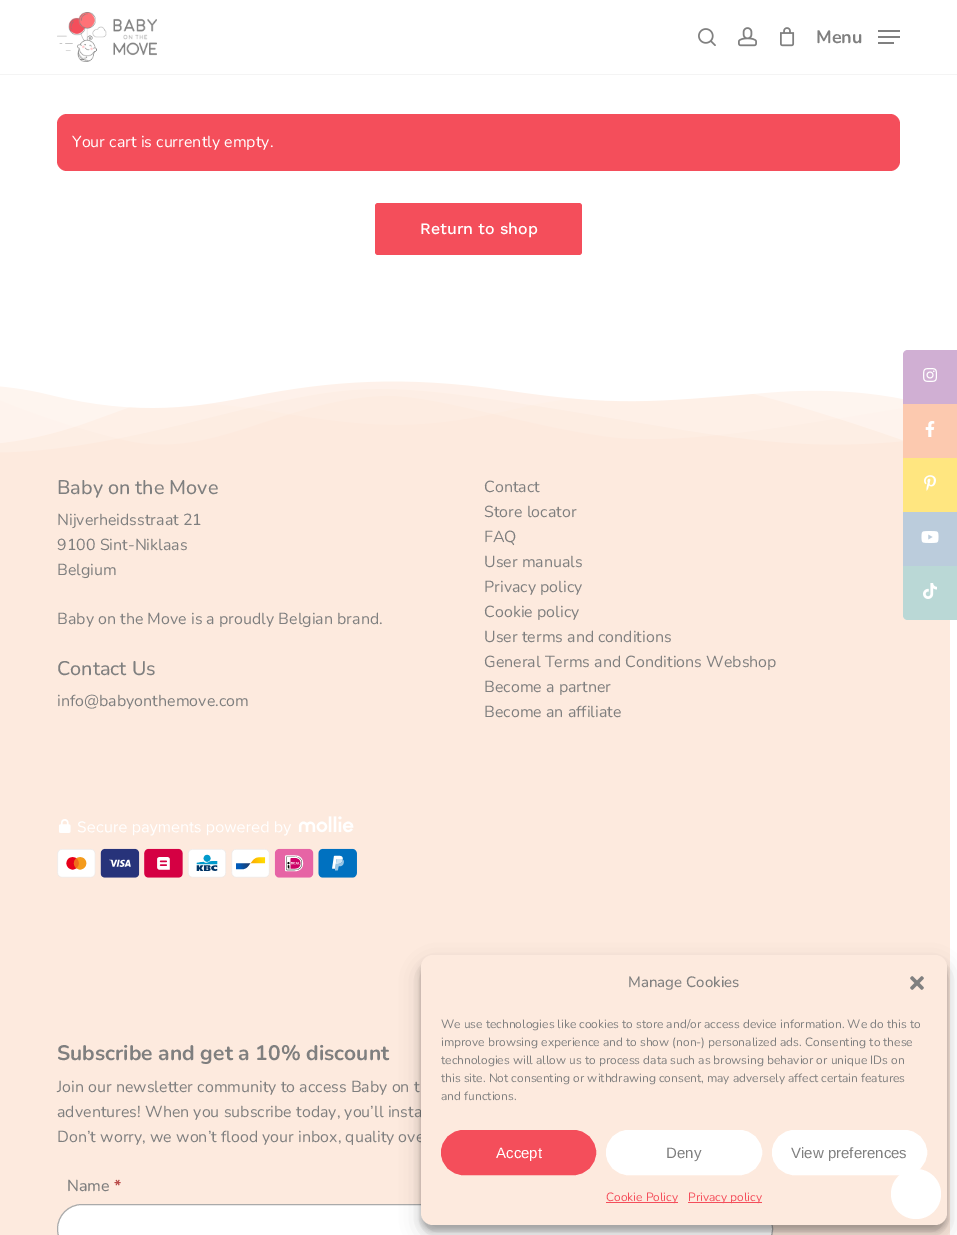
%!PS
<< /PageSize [957 1235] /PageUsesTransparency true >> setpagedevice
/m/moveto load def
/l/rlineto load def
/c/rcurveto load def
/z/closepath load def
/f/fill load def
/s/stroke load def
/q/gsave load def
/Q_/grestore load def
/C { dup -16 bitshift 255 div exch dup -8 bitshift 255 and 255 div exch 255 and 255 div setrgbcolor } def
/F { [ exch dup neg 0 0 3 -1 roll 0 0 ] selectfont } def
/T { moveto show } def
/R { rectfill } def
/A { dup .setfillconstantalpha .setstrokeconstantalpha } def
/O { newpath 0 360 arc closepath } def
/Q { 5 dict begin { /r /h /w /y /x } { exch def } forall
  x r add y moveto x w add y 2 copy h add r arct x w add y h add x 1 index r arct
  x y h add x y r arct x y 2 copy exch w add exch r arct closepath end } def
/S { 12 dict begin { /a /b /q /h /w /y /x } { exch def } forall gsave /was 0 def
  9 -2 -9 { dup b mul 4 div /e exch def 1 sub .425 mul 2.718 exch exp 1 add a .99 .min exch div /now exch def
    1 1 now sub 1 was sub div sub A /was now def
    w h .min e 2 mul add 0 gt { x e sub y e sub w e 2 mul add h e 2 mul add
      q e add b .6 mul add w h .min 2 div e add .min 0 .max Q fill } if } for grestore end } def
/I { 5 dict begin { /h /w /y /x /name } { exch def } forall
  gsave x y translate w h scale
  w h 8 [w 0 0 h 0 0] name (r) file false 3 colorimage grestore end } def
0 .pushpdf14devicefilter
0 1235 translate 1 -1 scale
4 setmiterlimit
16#FFFFFF C
0 0 957 1235 R
q
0 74 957 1 rectclip
16#000000 C
0 0 957 74 0 1 .14 S
Q_
(1.rgb) 57 12 100 50 I
(2.rgb) 698 28 18 18 I
(3.rgb) 738 27 19 20 I
(4.rgb) 780 27 15 20 I
/Nunito-Bold 18 F
16#7F7F7F C
(Menu) 816 43 T
16#808080 C
878 30 22 2 R
878 42 16 2 R
878 36 22 2 R
16#F44E5B C
57 114 843 57 10 Q f
/Nunito-Regular 16 F
16#FFFFFF C
(Your cart is currently empty.) 72 147 T
16#F44E5B C
375 203 207 52 3 Q f
/WorkSans-Medium 16 F
16#FFFFFF C
(Return to shop) 420 234 T
16#FDEADE C
0 381 950 854 R
(5.rgb) 0 379 903 74 I
/Nunito-Medium 19.75 F
16#7F7F7F C
(Baby on the Move) 57 494 T
/Nunito-Regular 16 F
(Nijverheidsstraat 21) 57 525 T
(9100 Sint-Niklaas) 57 550 T
(Belgium) 57 575 T
(Baby on the Move is a proudly Belgian brand.) 57 624 T
/Nunito-Medium 19.75 F
(Contact Us) 57 675 T
/Nunito-Regular 16 F
(info@babyonthemove.com) 57 706 T
(Contact) 484 492 T
(Store locator) 484 517 T
(FAQ) 484 542 T
(User manuals) 484 567 T
(Privacy policy) 484 592 T
(Cookie policy) 484 617 T
(User terms and conditions) 484 642 T
(General Terms and Conditions Webshop) 484 667 T
(Become a partner) 484 692 T
(Become an affiliate) 484 717 T
(6.rgb) 57 816 300 62 I
/Nunito-Bold 21 F
(Subscribe and get a 10% discount) 57 1060 T
/Nunito-Regular 16 F
(Join our newsletter community to access Baby on t) 57 1092 T
(adventures! When you subscribe today, you’ll insta) 57 1117 T
(Don’t worry, we won’t flood your inbox, quality ove) 57 1142 T
/Nunito-Medium 16 F
(Name) 67 1191 T
/Nunito-Bold 16 F
16#B94A48 C
(*) 114 1191 T
16#FFFFFF C
57.5 1204.5 715 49 24.5 Q q f Q_
16#AAAAAA C
s
16#D0AFD3 C
908 350 m 49 0 l 0 54 l -54 0 l 0 -49 l 0 -3 2 -5 5 -5 c z f
(7.rgb) 923 368 14 14 I
16#FCC9AF C
903 404 54 54 R
(8.rgb) 925 421 10 16 I
16#FFE680 C
903 458 54 54 R
(9.rgb) 924 475 12 16 I
16#BBCCDC C
903 512 54 54 R
(10.rgb) 921 531 18 12 I
16#BAD8D6 C
903 566 m 54 0 l 0 54 l -49 0 l -3 0 -5 -2 -5 -5 c z f
(11.rgb) 923 583 14 16 I
16#000000 C
421 961 526 270 12 3 .23 S
421 965 526 270 12 10 .19 S
16#FDEADE C
421 955 526 270 12 Q f
/Nunito-Medium 15 F
16#7F7F7F C
(Manage Cookies) 628 987 T
(12.rgb) 910 976 14 14 I
/Nunito-Regular 12 F
(We use technologies like cookies to store and/or access device information. We do this to) 441 1028 T
(improve browsing experience and to show \(non-\) personalized ads. Consenting to these) 441 1046 T
(technologies will allow us to process data such as browsing behavior or unique IDs on) 441 1064 T
(this site. Not consenting or withdrawing consent, may adversely affect certain features) 441 1082 T
(and functions.) 441 1100 T
16#F44E5B C
441.5 1130.5 154 44 22 Q q f Q_
s
/LiberationSans-Regular 15 F
16#FFFFFF C
(Accept) 496 1158 T
606.5 1130.5 155 44 22 Q q f Q_
s
16#7F7F7F C
(Deny) 666 1158 T
16#FFFFFF C
772.5 1130.5 154 44 22 Q q f Q_
s
16#7F7F7F C
(View preferences) 791 1158 T
16#F44E5B C
606 1202 72 1 R
/Nunito-Regular 12 F
(Cookie Policy) 606 1201 T
688 1202 74 1 R
(Privacy policy) 688 1201 T
16#FFFFFF C
916 1194 25 O f
.poppdf14devicefilter showpage
